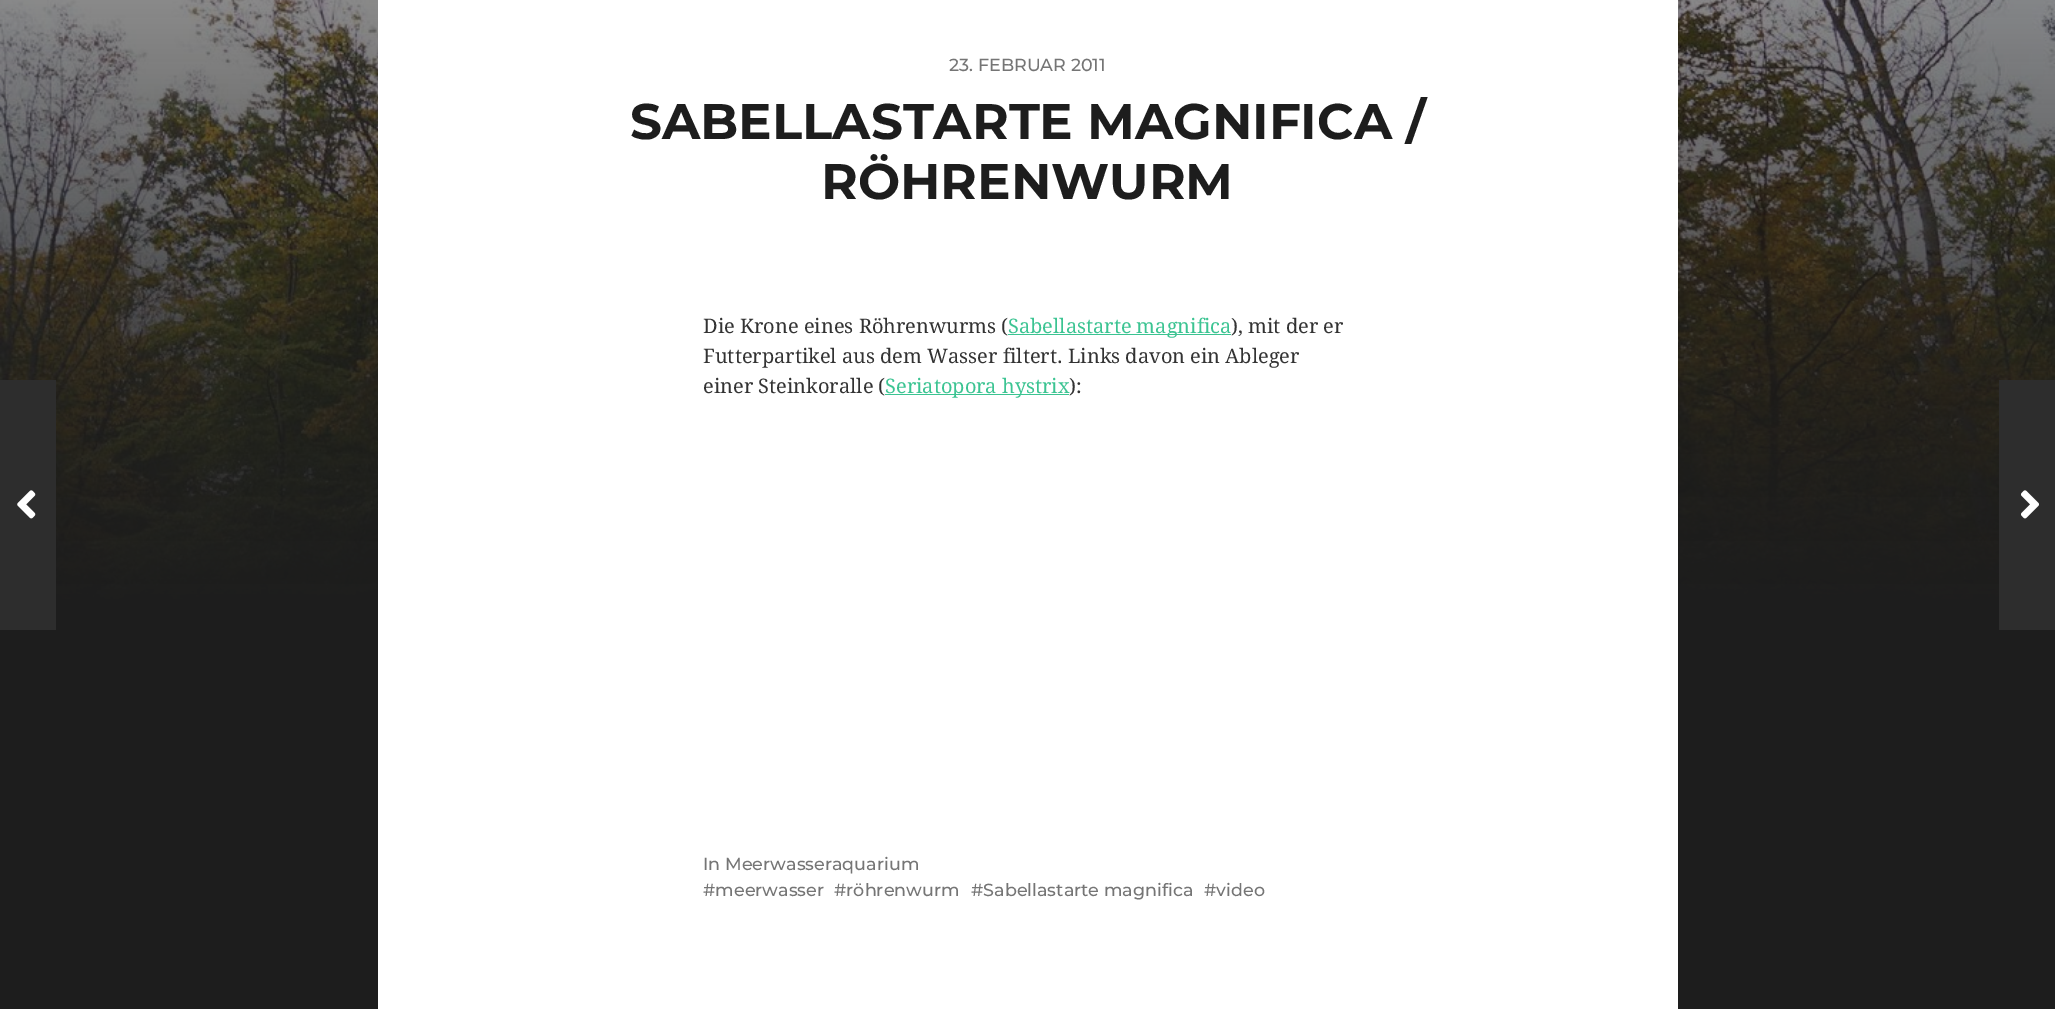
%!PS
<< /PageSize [2055 1009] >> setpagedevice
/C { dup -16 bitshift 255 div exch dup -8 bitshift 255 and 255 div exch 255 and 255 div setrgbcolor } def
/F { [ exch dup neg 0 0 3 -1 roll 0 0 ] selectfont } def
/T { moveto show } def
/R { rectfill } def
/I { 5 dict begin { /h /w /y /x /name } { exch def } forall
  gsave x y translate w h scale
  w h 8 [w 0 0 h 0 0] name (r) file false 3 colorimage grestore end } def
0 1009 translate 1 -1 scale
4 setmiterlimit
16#1D1D1D C
0 0 2055 1009 R
(1.rgb) 0 0 2055 606 I
16#FFFFFF C
378 0 1300 1009 R
/Montserrat-Thin 17.5 F
16#757575 C
(23. FEBRUAR 2011) 949 71 T
/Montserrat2-Thin 50 F
16#1D1D1D C
(SABELLASTARTE MAGNIFICA /) 630 139 T
(RÖHRENWURM) 821 199 T
/DroidSerif-Regular 20 F
16#333333 C
(Die Krone eines Röhrenwurms \() 703 333 T
16#3BC492 C
1008 334 223 1 R
(Sabellastarte magnifica) 1008 333 T
16#333333 C
(\), mit der er) 1231 333 T
(Futterpartikel aus dem Wasser filtert. Links davon ein Ableger) 703 363 T
(einer Steinkoralle \() 703 393 T
16#3BC492 C
885 394 184 1 R
(Seriatopora hystrix) 885 393 T
16#333333 C
(\):) 1069 393 T
16#2D2D2D C
0 380 56 250 R
(2.rgb) 17 490 19 29 I
1999 380 56 250 R
(3.rgb) 2021 490 18 29 I
/Montserrat-Thin 17.5 F
16#757575 C
(In Meerwasseraquarium) 703 870 T
(#meerwasser) 703 896 T
(#röhrenwurm) 834 896 T
(#Sabellastarte magnifica) 971 896 T
(#video) 1204 896 T
showpage
